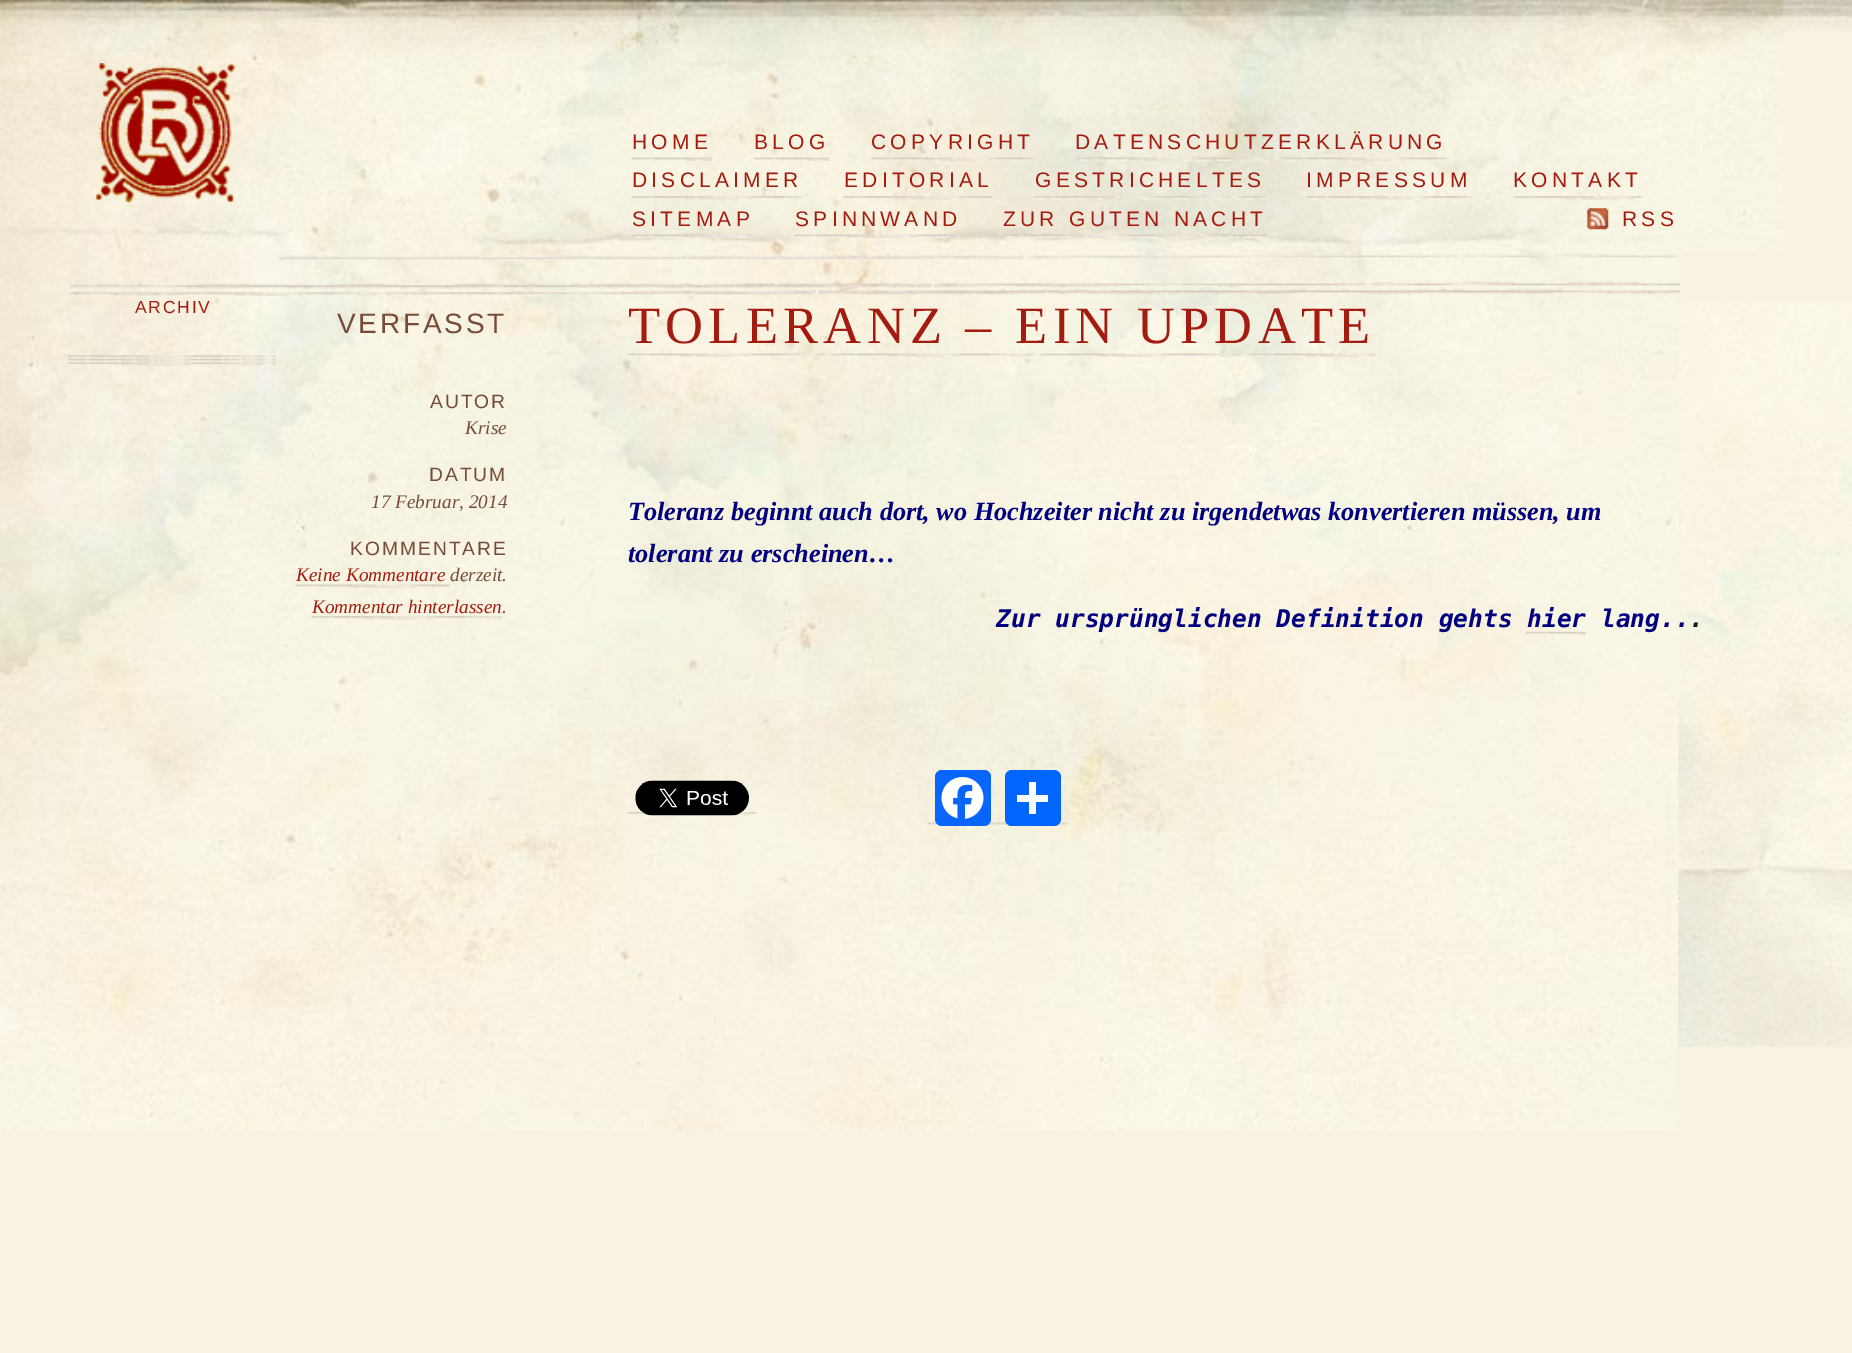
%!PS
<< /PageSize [1852 1353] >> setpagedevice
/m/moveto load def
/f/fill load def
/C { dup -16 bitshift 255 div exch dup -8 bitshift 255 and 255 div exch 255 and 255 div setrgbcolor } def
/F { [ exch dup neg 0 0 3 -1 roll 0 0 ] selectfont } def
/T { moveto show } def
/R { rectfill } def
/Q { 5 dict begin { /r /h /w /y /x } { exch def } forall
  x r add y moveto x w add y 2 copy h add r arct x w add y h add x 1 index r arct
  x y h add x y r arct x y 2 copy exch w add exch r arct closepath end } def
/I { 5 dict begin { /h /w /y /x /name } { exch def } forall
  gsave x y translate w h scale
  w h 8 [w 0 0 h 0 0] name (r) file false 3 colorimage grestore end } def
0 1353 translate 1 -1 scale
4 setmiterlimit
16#F8F2E0 C
0 0 1852 1353 R
(1.rgb) 1783 0 69 33 I
(2.rgb) 0 0 1784 252 I
(32.rgb) 1678 303 174 744 I
(33.rgb) 1678 889 2 13 I
(18.rgb) 0 252 1679 879 I
(3.rgb) 68 281 1612 15 I
(4.rgb) 96 63 139 140 I
(5.rgb) 631 157 82 4 I
/LiberationSans-Regular 21 F
16#A41C10 C
632 149 m 4.25 0 (HOME) ashow
(6.rgb) 754 157 76 4 I
754 149 m 4.25 0 (BLOG) ashow
(7.rgb) 871 157 163 4 I
871 149 m 4.25 0 (COPYRIGHT) ashow
(8.rgb) 1076 157 371 4 I
1075 149 m 4.25 0 (DATENSCHUTZERKLÄRUNG) ashow
(9.rgb) 631 196 171 4 I
632 187 m 4.25 0 (DISCLAIMER) ashow
(10.rgb) 843 196 150 4 I
844 187 m 4.25 0 (EDITORIAL) ashow
(11.rgb) 1034 196 232 4 I
1035 187 m 4.25 0 (GESTRICHELTES) ashow
(12.rgb) 1307 196 165 4 I
1306 187 m 4.25 0 (IMPRESSUM) ashow
(13.rgb) 1513 196 129 4 I
1513 187 m 4.25 0 (KONTAKT) ashow
(14.rgb) 631 234 122 4 I
632 226 m 4.25 0 (SITEMAP) ashow
(15.rgb) 794 234 167 4 I
795 226 m 4.25 0 (SPINNWAND) ashow
(16.rgb) 1003 234 264 4 I
1003 226 m 4.25 0 (ZUR GUTEN NACHT) ashow
(17.rgb) 1587 208 22 22 I
1622 226 m 4.25 0 (RSS) ashow
(19.rgb) 68 355 209 4 I
/LiberationSans-Regular 17.5 F
135 313 m 1.75 0 (ARCHIV) ashow
(20.rgb) 68 358 209 5 I
(21.rgb) 68 362 209 4 I
(22.rgb) 278 253 1400 8 I
/LiberationSans-Regular 28 F
16#774C37 C
337 333 m 2.75 0 (VERFASST) ashow
/LiberationSans-Regular 19.25 F
430 408 m 2 0 (AUTOR) ashow
/LiberationSerif-Italic 19.25 F
(Krise) 465 434 T
/LiberationSans-Regular 19.25 F
429 481 m 2 0 (DATUM) ashow
/LiberationSerif-Italic 19.25 F
(17 Februar, 2014) 371 508 T
/LiberationSans-Regular 19.25 F
350 555 m 2 0 (KOMMENTARE) ashow
/LiberationSerif-Italic 19.25 F
16#A41C10 C
(Keine Kommentare) 296 581 T
16#774C37 C
(derzeit.) 450 581 T
(23.rgb) 295 584 155 4 I
16#A41C10 C
(Kommentar hinterlassen) 312 613 T
16#774C37 C
(.) 502 613 T
(24.rgb) 311 616 192 4 I
/LiberationSerif-Regular 52.5 F
16#A41C10 C
628 343 m 5.25 0 (TOLERANZ – EIN UPDATE) ashow
(25.rgb) 628 353 748 4 I
/LiberationSerif-BoldItalic 26.25 F
16#000080 C
(Toleranz beginnt auch dort, wo Hochzeiter nicht zu irgendetwas konvertieren müssen, um) 628 520 T
(tolerant zu erscheinen…) 628 562 T
/DejaVuSansMono-BoldItalic 24.5 F
(Zur ursprünglichen Definition gehts hier lang..) 996 627 T
16#1A1A1A C
(.) 1689 627 T
(26.rgb) 1526 631 60 5 I
(27.rgb) 628 812 128 4 I
(28.rgb) 635 780 114 36 I
(29.rgb) 927 822 71 4 I
16#0866FF C
935 770 56 56 7 Q f
(30.rgb) 941 777 43 42 I
(31.rgb) 997 822 71 4 I
16#0166FF C
1005 770 56 56 7 Q f
16#FFFFFF C
1029 782 7 32 R
1017 795 31 7 R
showpage
